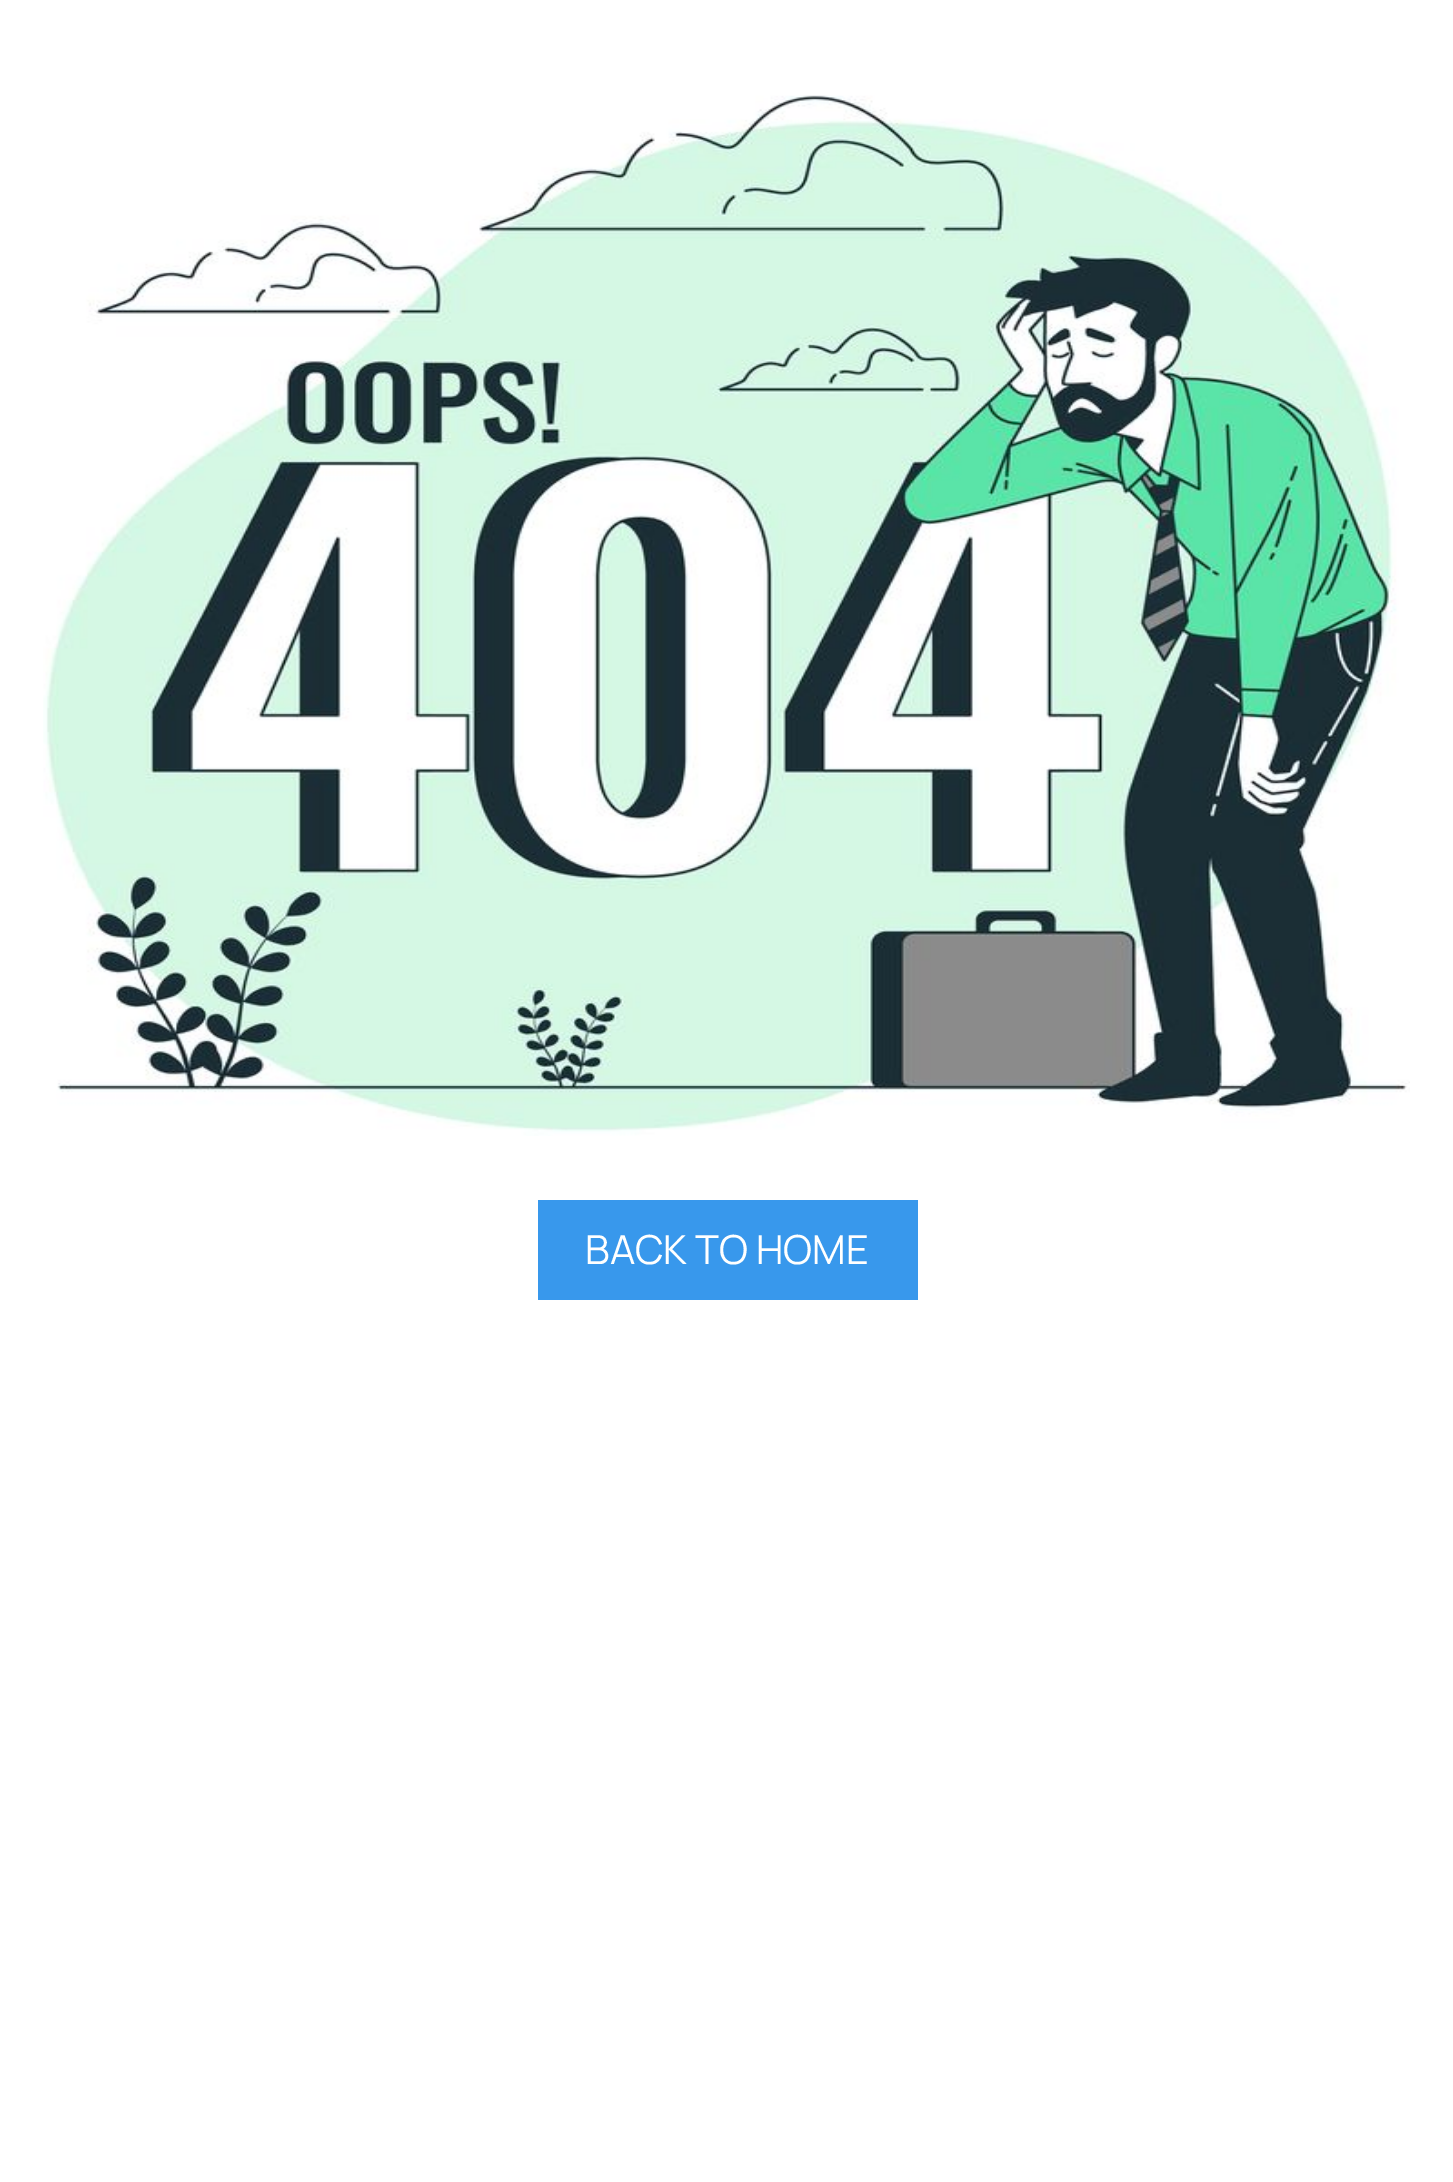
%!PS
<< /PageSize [1453 2182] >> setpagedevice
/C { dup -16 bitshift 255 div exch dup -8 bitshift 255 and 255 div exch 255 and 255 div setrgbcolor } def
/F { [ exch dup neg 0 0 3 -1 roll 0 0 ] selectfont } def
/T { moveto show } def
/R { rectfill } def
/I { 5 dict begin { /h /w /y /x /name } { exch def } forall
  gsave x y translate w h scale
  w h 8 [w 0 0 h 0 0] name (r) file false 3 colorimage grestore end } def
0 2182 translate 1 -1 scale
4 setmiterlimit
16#FFFFFF C
0 0 1453 2182 R
(1.rgb) 43 95 1367 1041 I
16#3898EC C
538 1200 380 100 R
/Manrope-Regular 40 F
16#FFFFFF C
(BACK TO HOME) 585 1264 T
showpage
